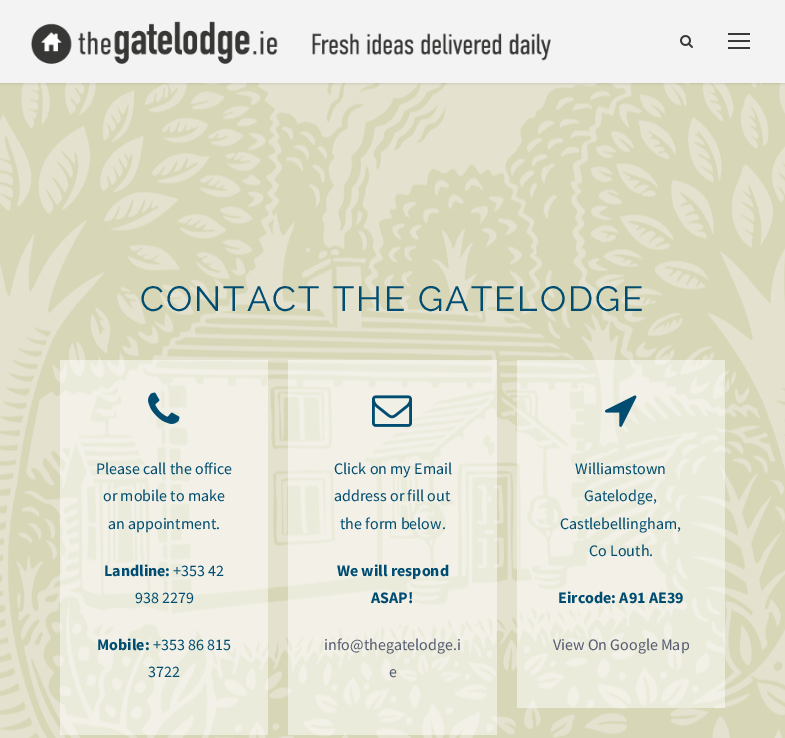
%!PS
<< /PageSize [785 738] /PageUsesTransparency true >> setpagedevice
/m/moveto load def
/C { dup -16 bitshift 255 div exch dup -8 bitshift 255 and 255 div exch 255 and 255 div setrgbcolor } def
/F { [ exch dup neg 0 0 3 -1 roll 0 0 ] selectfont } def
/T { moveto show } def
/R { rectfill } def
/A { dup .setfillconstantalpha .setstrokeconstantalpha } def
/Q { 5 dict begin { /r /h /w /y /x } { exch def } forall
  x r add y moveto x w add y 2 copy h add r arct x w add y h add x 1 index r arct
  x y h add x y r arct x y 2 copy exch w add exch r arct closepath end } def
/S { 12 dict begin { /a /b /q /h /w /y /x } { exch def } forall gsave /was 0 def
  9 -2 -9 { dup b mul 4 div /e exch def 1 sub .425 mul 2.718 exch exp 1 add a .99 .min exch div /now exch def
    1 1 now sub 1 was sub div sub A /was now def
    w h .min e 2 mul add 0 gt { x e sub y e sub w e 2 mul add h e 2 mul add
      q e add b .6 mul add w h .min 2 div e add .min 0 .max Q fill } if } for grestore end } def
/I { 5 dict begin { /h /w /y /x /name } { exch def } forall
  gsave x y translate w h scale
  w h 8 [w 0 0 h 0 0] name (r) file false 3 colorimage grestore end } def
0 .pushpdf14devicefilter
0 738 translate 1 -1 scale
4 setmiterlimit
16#F3F3F3 C
0 0 785 738 R
(3.rgb) 0 83 785 655 I
16#000000 C
0 1 785 83 0 1 .1 S
16#F3F3F3 C
0 0 785 83 R
(1.rgb) 31 21 520 43 I
(2.rgb) 680 35 13 13 I
16#383838 C
728 33 22 2 R
728 40 22 2 R
728 47 22 2 R
/Raleway-Regular 35 F
16#004D71 C
140 311 m 2 0 (CONTACT THE GATELODGE) ashow
0.5 A
16#FFFFFF C
60 360 208 375 R
1 A
(4.rgb) 148 392 32 32 I
/SourceSansPro-Regular 16 F
16#004D71 C
(Please call the office) 96 474 T
(or mobile to make) 103 501 T
(an appointment.) 108 529 T
/SourceSansPro-Bold 16 F
(Landline:) 104 576 T
/SourceSansPro-Regular 16 F
(+353 42) 173 576 T
(938 2279) 135 603 T
/SourceSansPro-Bold 16 F
(Mobile:) 97 650 T
/SourceSansPro-Regular 16 F
(+353 86 815) 153 650 T
(3722) 148 677 T
0.5 A
16#FFFFFF C
288 360 209 375 R
1 A
(5.rgb) 372 395 40 32 I
16#004D71 C
(Click on my Email) 334 474 T
(address or fill out) 334 501 T
(the form below.) 340 529 T
/SourceSansPro-Bold 16 F
(We will respond) 337 576 T
(ASAP!) 371 603 T
/SourceSansPro-Regular 16 F
16#545B70 C
(info@thegatelodge.i) 324 650 T
(e) 389 677 T
0.5 A
16#FFFFFF C
517 360 208 348 R
1 A
(6.rgb) 605 395 32 32 I
16#004D71 C
(Williamstown) 575 474 T
(Gatelodge,) 584 501 T
(Castlebellingham,) 560 529 T
(Co Louth.) 589 556 T
/SourceSansPro-Bold 16 F
(Eircode: A91 AE39) 558 603 T
/SourceSansPro-Regular 16 F
16#545B70 C
(View On Google Map) 553 650 T
.poppdf14devicefilter showpage
